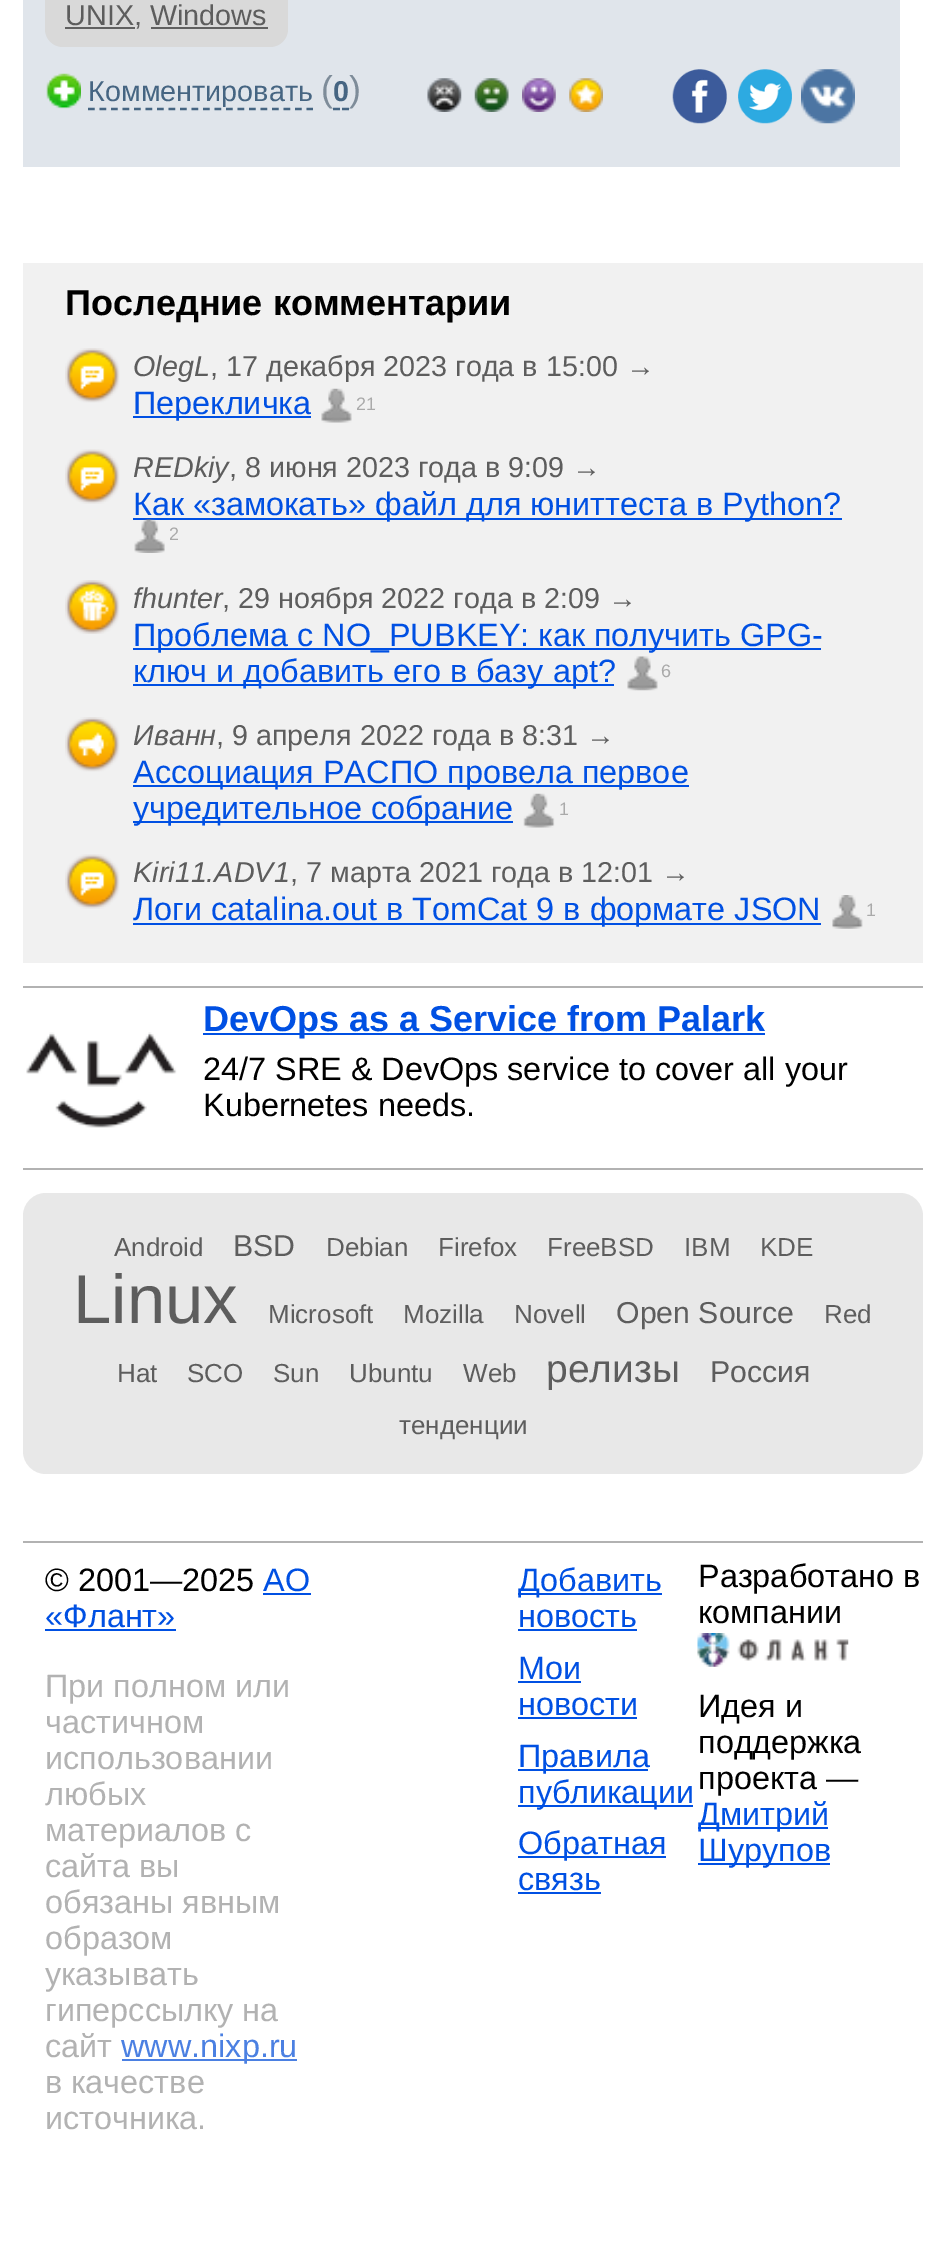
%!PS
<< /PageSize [945 2257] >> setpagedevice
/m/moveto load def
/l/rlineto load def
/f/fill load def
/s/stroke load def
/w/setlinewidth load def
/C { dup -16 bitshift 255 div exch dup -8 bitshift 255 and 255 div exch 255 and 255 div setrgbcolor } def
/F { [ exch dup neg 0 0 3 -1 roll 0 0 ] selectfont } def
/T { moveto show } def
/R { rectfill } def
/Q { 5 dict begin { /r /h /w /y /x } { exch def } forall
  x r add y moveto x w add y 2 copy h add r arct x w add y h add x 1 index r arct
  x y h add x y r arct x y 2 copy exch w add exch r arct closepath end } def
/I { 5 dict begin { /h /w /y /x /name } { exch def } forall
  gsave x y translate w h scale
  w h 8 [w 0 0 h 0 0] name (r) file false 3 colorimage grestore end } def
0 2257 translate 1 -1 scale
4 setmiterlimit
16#FFFFFF C
0 0 945 2257 R
16#E0E5EB C
23 0 877 167 R
16#D9D9D9 C
45 -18 243 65 18 Q f
16#606060 C
65 27 70 2 R
/LiberationSans-Regular 28.75 F
16#5D5D5D C
(UNIX, Windows) 65 25 T
16#606060 C
151 27 117 2 R
(1.rgb) 46 73 35 36 I
16#466582 C
(Комментировать) 88 101 T
2.2 w
[6.75 4.75] 0 setdash
88 109 m 225 0 l s
/LiberationSans-Regular 36 F
16#7E8C99 C
(\() 321 101 T
/LiberationSans-Bold 28.75 F
16#466582 C
(0) 333 101 T
[] 0 setdash
333 109 m 7 0 l 342 109 m 7 0 l s
/LiberationSans-Regular 36 F
16#7E8C99 C
(\)) 349 101 T
(2.rgb) 427 78 35 34 I
(3.rgb) 474 78 35 34 I
(4.rgb) 522 78 34 34 I
(5.rgb) 569 78 34 34 I
(6.rgb) 672 69 55 55 I
(7.rgb) 738 69 54 55 I
(8.rgb) 801 69 54 55 I
16#F1F1F1 C
23 263 900 700 R
/LiberationSans-Bold 36 F
16#000000 C
(Последние комментарии) 65 315 T
(9.rgb) 65 348 55 55 I
/LiberationSans-Italic 28.75 F
16#5D5D5D C
(OlegL) 133 376 T
/LiberationSans-Regular 28.75 F
(, 17 декабря 2023 года в 15:00 →) 210 376 T
16#0050E3 C
133 416 178 2 R
/LiberationSans-Regular 32.4 F
(Перекличка) 133 414 T
(10.rgb) 321 388 31 35 I
/LiberationSans-Regular 18 F
16#AAAAAA C
(21) 356 410 T
(11.rgb) 65 449 55 55 I
/LiberationSans-Italic 28.75 F
16#5D5D5D C
(REDkiy) 133 477 T
/LiberationSans-Regular 28.75 F
(, 8 июня 2023 года в 9:09 →) 229 477 T
16#0050E3 C
133 518 709 2 R
/LiberationSans-Regular 32.4 F
(Как «замокать» файл для юниттеста в Python?) 133 515 T
(12.rgb) 134 519 31 34 I
/LiberationSans-Regular 18 F
16#AAAAAA C
(2) 169 540 T
(13.rgb) 65 580 55 54 I
/LiberationSans-Italic 28.75 F
16#5D5D5D C
(fhunter) 133 608 T
/LiberationSans-Regular 28.75 F
(, 29 ноября 2022 года в 2:09 →) 222 608 T
16#0050E3 C
133 648 688 2 R
/LiberationSans-Regular 32.4 F
(Проблема с NO_PUBKEY: как получить GPG-) 133 646 T
133 684 481 2 R
(ключ и добавить его в базу apt?) 133 682 T
(14.rgb) 627 656 31 35 I
/LiberationSans-Regular 18 F
16#AAAAAA C
(6) 661 677 T
(15.rgb) 65 717 55 55 I
/LiberationSans-Italic 28.75 F
16#5D5D5D C
(Иванн) 133 745 T
/LiberationSans-Regular 28.75 F
(, 9 апреля 2022 года в 8:31 →) 216 745 T
16#0050E3 C
133 785 556 2 R
/LiberationSans-Regular 32.4 F
(Ассоциация РАСПО провела первое) 133 783 T
133 821 380 2 R
(учредительное собрание) 133 819 T
(16.rgb) 523 793 32 35 I
/LiberationSans-Regular 18 F
16#AAAAAA C
(1) 559 815 T
(11.rgb) 65 854 55 55 I
/LiberationSans-Italic 28.75 F
16#5D5D5D C
(Kiri11.ADV1) 133 882 T
/LiberationSans-Regular 28.75 F
(, 7 марта 2021 года в 12:01 →) 290 882 T
16#0050E3 C
133 923 688 2 R
/LiberationSans-Regular 32.4 F
(Логи catalina.out в TomCat 9 в формате JSON) 133 920 T
(17.rgb) 832 895 31 34 I
/LiberationSans-Regular 18 F
16#AAAAAA C
(1) 866 916 T
16#B2B2B2 C
23 986 900 2 R
23 1168 900 2 R
16#0050E3 C
203 1033 562 2 R
/LiberationSans-Bold 36 F
(DevOps as a Service from Palark) 203 1031 T
(18.rgb) 26 1032 151 96 I
/LiberationSans-Regular 32.4 F
16#000000 C
(24/7 SRE & DevOps service to cover all your) 203 1080 T
(Kubernetes needs.) 203 1116 T
16#E8E8E8 C
23 1193 900 281 23 Q f
/LiberationSans-Regular 26 F
16#5D5D5D C
(Android) 114 1256 T
/LiberationSans-Regular 30.25 F
(BSD) 233 1256 T
/LiberationSans-Regular 26 F
(Debian) 326 1256 T
(Firefox) 438 1256 T
(FreeBSD) 547 1256 T
(IBM) 684 1256 T
(KDE) 760 1256 T
/LiberationSans-Regular 69 F
(Linux) 73 1323 T
/LiberationSans-Regular 26 F
(Microsoft) 268 1323 T
(Mozilla) 403 1323 T
(Novell) 514 1323 T
/LiberationSans-Regular 30.25 F
(Open Source) 616 1323 T
/LiberationSans-Regular 26 F
(Red) 824 1323 T
(Hat) 117 1382 T
(SCO) 187 1382 T
(Sun) 273 1382 T
(Ubuntu) 349 1382 T
(Web) 463 1382 T
/LiberationSans-Regular 39 F
(релизы) 546 1382 T
/LiberationSans-Regular 30.25 F
(Россия) 710 1382 T
/LiberationSans-Regular 26 F
(тенденции) 399 1434 T
16#B2B2B2 C
23 1541 900 2 R
/LiberationSans-Regular 32.4 F
16#000000 C
(© 2001—2025) 45 1591 T
16#0050E3 C
(АО) 263 1591 T
263 1593 48 2 R
(«Флант») 45 1627 T
45 1629 131 2 R
16#B2B2B2 C
(При полном или) 45 1697 T
(частичном) 45 1733 T
(использовании) 45 1769 T
(любых) 45 1805 T
(материалов с) 45 1841 T
(сайта вы) 45 1877 T
(обязаны явным) 45 1913 T
(образом) 45 1949 T
(указывать) 45 1985 T
(гиперссылку на) 45 2021 T
(сайт) 45 2057 T
16#4B80E2 C
122 2059 175 2 R
(www.nixp.ru) 121 2057 T
16#B2B2B2 C
(в качестве) 45 2093 T
(источника.) 45 2129 T
16#0050E3 C
518 1593 144 2 R
(Добавить) 518 1591 T
(новость) 518 1627 T
518 1629 119 2 R
(Мои) 518 1679 T
518 1681 63 2 R
(новости) 518 1715 T
518 1717 119 2 R
518 1769 130 2 R
(Правила) 518 1767 T
518 1805 175 2 R
(публикации) 518 1803 T
518 1856 148 2 R
(Обратная) 518 1854 T
(связь) 518 1890 T
518 1892 83 2 R
16#000000 C
(Разработано в) 698 1587 T
(компании) 698 1623 T
(19.rgb) 697 1633 152 34 I
(Идея и) 698 1717 T
(поддержка) 698 1753 T
(проекта —) 698 1789 T
16#0050E3 C
698 1827 130 2 R
(Дмитрий) 698 1825 T
698 1863 132 2 R
(Шурупов) 698 1861 T
showpage
